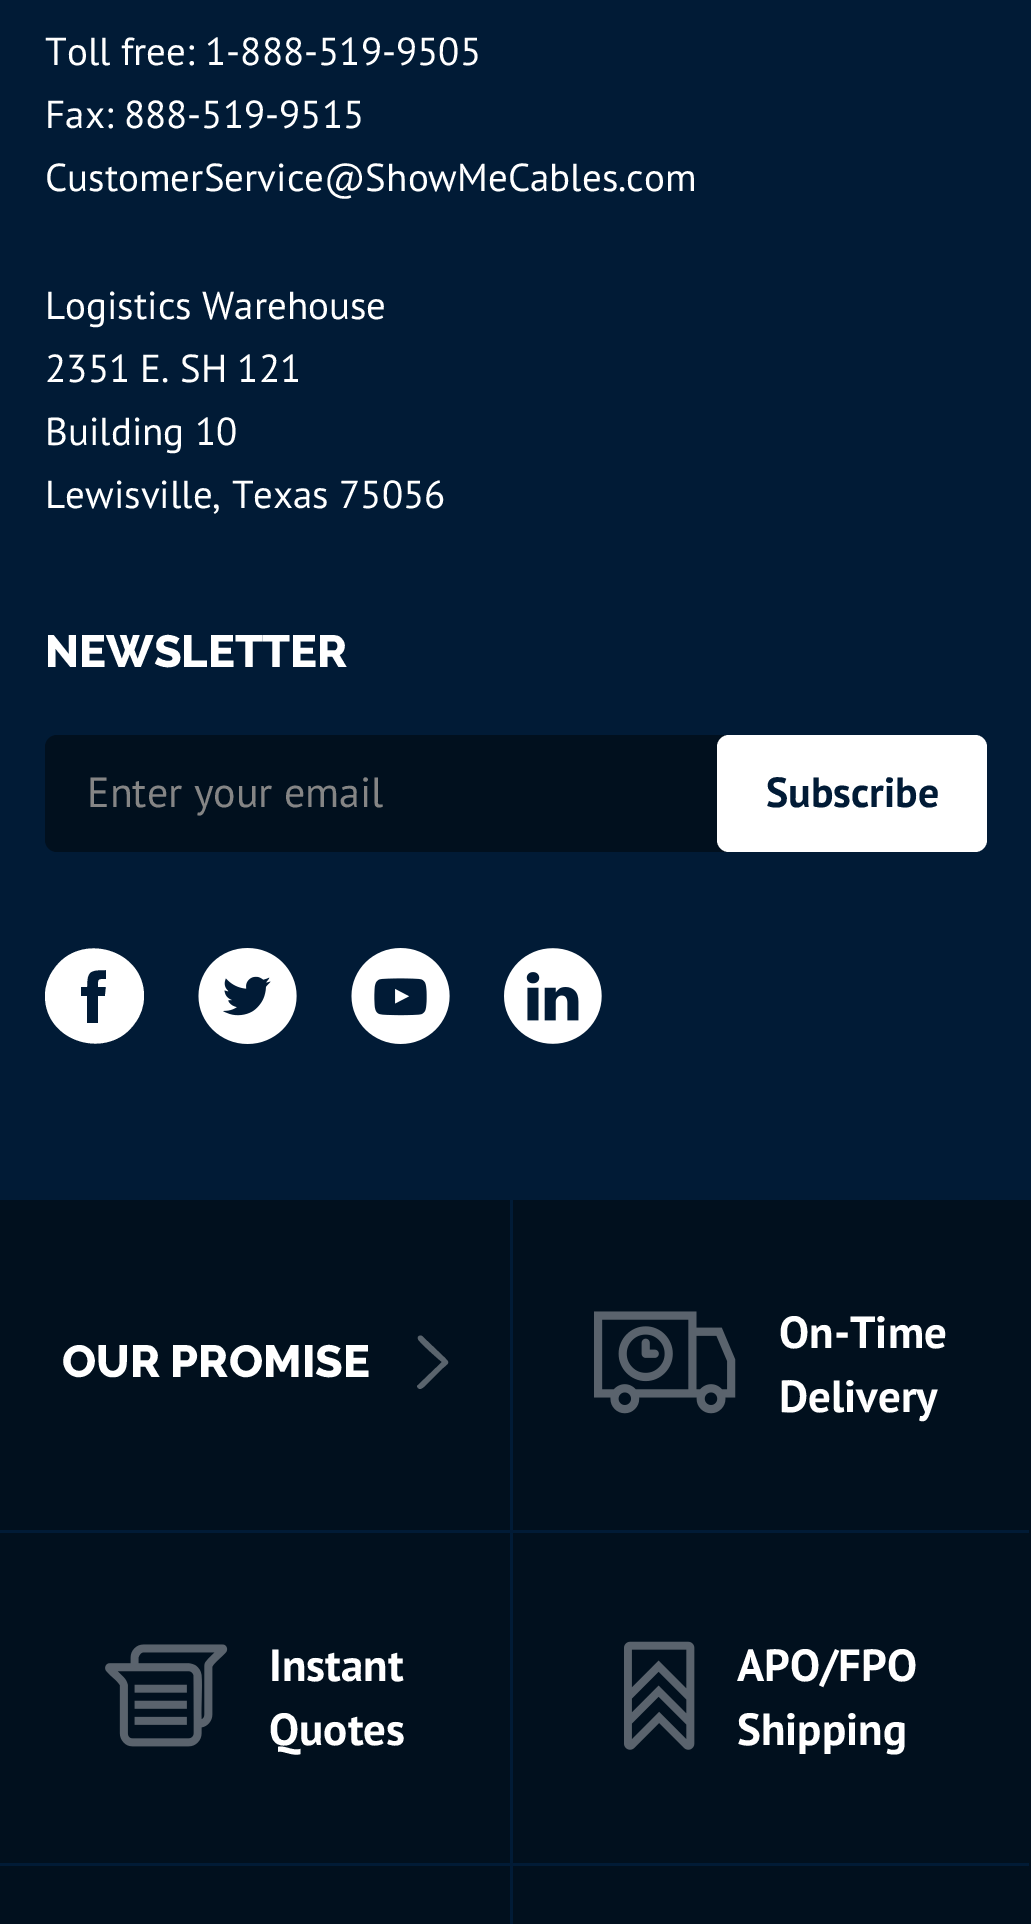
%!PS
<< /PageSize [1031 1924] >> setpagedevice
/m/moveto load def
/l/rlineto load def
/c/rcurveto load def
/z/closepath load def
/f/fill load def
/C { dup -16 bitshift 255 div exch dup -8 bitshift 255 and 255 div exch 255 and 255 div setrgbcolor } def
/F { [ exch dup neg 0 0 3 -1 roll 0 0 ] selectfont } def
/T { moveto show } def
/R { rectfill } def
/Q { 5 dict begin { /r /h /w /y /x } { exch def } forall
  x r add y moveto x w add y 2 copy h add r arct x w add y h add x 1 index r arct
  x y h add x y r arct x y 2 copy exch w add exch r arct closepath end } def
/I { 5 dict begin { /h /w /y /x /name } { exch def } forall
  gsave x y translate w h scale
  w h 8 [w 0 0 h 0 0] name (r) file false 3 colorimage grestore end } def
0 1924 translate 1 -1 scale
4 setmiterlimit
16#011B36 C
0 0 1031 1924 R
/PTSans-Regular 39 F
16#FFFFFF C
(Toll free: 1-888-519-9505) 45 65 T
(Fax: 888-519-9515) 45 128 T
(CustomerService@ShowMeCables.com) 45 191 T
(Logistics Warehouse) 45 319 T
(2351 E. SH 121) 45 382 T
(Building 10) 45 445 T
(Lewisville, Texas 75056) 45 508 T
/Raleway-ExtraBold 45 F
(NEWSLETTER) 45 667 T
16#01101E C
57 735 m 672 0 l 0 117 l -672 0 l -6.5 0 -12 -5.5 -12 -12 c 0 -93 l 0 -6.5 5.5 -12 12 -12 c z f
/PTSans-Regular 42 F
16#858585 C
(Enter your email) 87 807 T
16#FFFFFF C
717 735 270 117 12 Q f
/PTSans-Bold 42 F
16#011B36 C
(Subscribe) 766 807 T
16#FFFFFF C
45 996 m 0 -10 3 -19 9 -27 c 26 -38 90 -20 90 27 c 0 10 -3 19 -9 27 c -26 38 -90 20 -90 -27 c z 98 1023 m 0 -27 l 7 0 l 1 -9 l -8 0 l 0 -8 0 -8 8 -8 c 0 -9 l -16 0 -19 1 -19 17 c -6 0 l 0 9 l 6 0 l 0 27 l z f
(1.rgb) 198 948 99 96 I
(2.rgb) 351 948 99 96 I
(3.rgb) 504 948 98 96 I
16#01101E C
0 1200 1031 724 R
16#011B36 C
510 1200 3 724 R
0 1530 1029 3 R
/Raleway-ExtraBold 45 F
16#FFFFFF C
(OUR PROMISE) 62 1377 T
16#5A646D C
420 1389 m -2 0 -4 -3 -2 -4 c 24 -23 l -4 -3 -24 -21 -24 -23 c -1 -3 2 -4 4 -3 c 21 20 l 7 7 7 6 0 12 c -17 17 l 0 0 -4 4 -6 4 c z f
(4.rgb) 594 1311 142 103 I
/PTSans-Bold 45 F
16#FFFFFF C
(On-Time) 779 1348 T
(Delivery) 779 1412 T
16#011B36 C
0 1863 1029 3 R
(5.rgb) 105 1644 123 103 I
16#FFFFFF C
(Instant) 269 1681 T
(Quotes) 269 1745 T
(6.rgb) 624 1641 71 109 I
(APO/FPO) 737 1681 T
(Shipping) 737 1745 T
showpage
